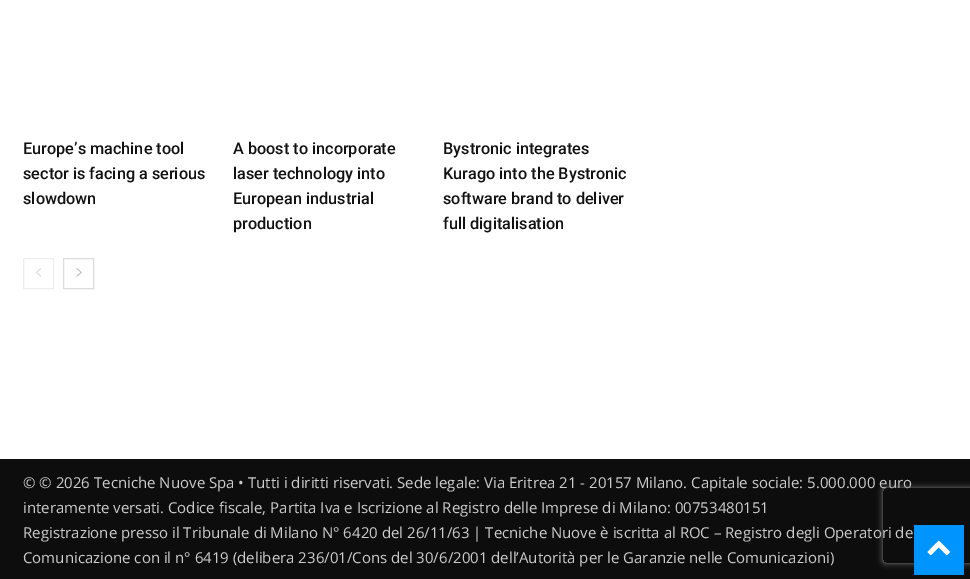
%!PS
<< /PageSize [970 579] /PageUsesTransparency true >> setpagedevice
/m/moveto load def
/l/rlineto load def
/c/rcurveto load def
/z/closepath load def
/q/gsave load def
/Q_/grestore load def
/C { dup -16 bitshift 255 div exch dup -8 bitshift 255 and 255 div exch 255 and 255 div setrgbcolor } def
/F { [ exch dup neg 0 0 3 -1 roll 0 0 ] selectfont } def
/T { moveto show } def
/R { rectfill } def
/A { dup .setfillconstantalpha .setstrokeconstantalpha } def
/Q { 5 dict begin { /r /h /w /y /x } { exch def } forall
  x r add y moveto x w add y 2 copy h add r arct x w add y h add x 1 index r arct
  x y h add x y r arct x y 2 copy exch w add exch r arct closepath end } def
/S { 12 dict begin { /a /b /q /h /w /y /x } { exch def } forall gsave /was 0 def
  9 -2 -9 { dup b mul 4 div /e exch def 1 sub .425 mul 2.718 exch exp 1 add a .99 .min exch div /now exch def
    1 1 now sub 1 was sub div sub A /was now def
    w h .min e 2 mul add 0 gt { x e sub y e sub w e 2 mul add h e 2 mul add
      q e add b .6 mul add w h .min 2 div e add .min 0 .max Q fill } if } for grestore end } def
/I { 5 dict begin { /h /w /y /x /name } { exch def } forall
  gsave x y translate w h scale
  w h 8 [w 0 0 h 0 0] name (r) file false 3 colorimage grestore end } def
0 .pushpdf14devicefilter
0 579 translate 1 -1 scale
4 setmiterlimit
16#FFFFFF C
0 0 970 579 R
/Roboto-Medium 16.25 F
16#111111 C
(Europe’s machine tool) 23 154 T
(sector is facing a serious) 23 179 T
(slowdown) 23 204 T
(A boost to incorporate) 233 154 T
(laser technology into) 233 179 T
(European industrial) 233 204 T
(production) 233 229 T
(Bystronic integrates) 443 154 T
(Kurago into the Bystronic) 443 179 T
(software brand to deliver) 443 204 T
(full digitalisation) 443 229 T
16#EEEEEE C
23.5 258.5 30 30 rectstroke
(1.rgb) 35 268 7 9 I
16#DCDCDC C
63.5 258.5 30 30 rectstroke
(2.rgb) 76 268 6 9 I
16#0D0D0D C
0 459 970 120 R
/OpenSans-Regular 15 F
16#CCCCCC C
(© © 2026 Tecniche Nuove Spa • Tutti i diritti riservati. Sede legale: Via Eritrea 21 - 20157 Milano. Capitale sociale: 5.000.000 euro) 23 488 T
(interamente versati. Codice fiscale, Partita Iva e Iscrizione al Registro delle Imprese di Milano: 00753480151) 23 513 T
(Registrazione presso il Tribunale di Milano N° 6420 del 26/11/63 | Tecniche Nuove è iscritta al ROC – Registro degli Operatori de) 23 538 T
(Comunicazione con il n° 6419 \(delibera 236/01/Cons del 30/6/2001 dell’Autorità per le Garanzie nelle Comunicazioni\)) 23 563 T
q
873 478 m 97 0 l 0 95 l -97 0 l z 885.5 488 m 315 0 l 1.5 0 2.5 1 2.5 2.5 c 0 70 l 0 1.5 -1 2.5 -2.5 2.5 c -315 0 l -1.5 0 -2.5 -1 -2.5 -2.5 c 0 -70 l 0 -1.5 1 -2.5 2.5 -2.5 c z eoclip newpath
16#808080 C
883 488 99 75 2.5 3 1 S
Q_
16#0094FF C
914 525 50 50 R
(3.rgb) 927 540 23 16 I
.poppdf14devicefilter showpage
